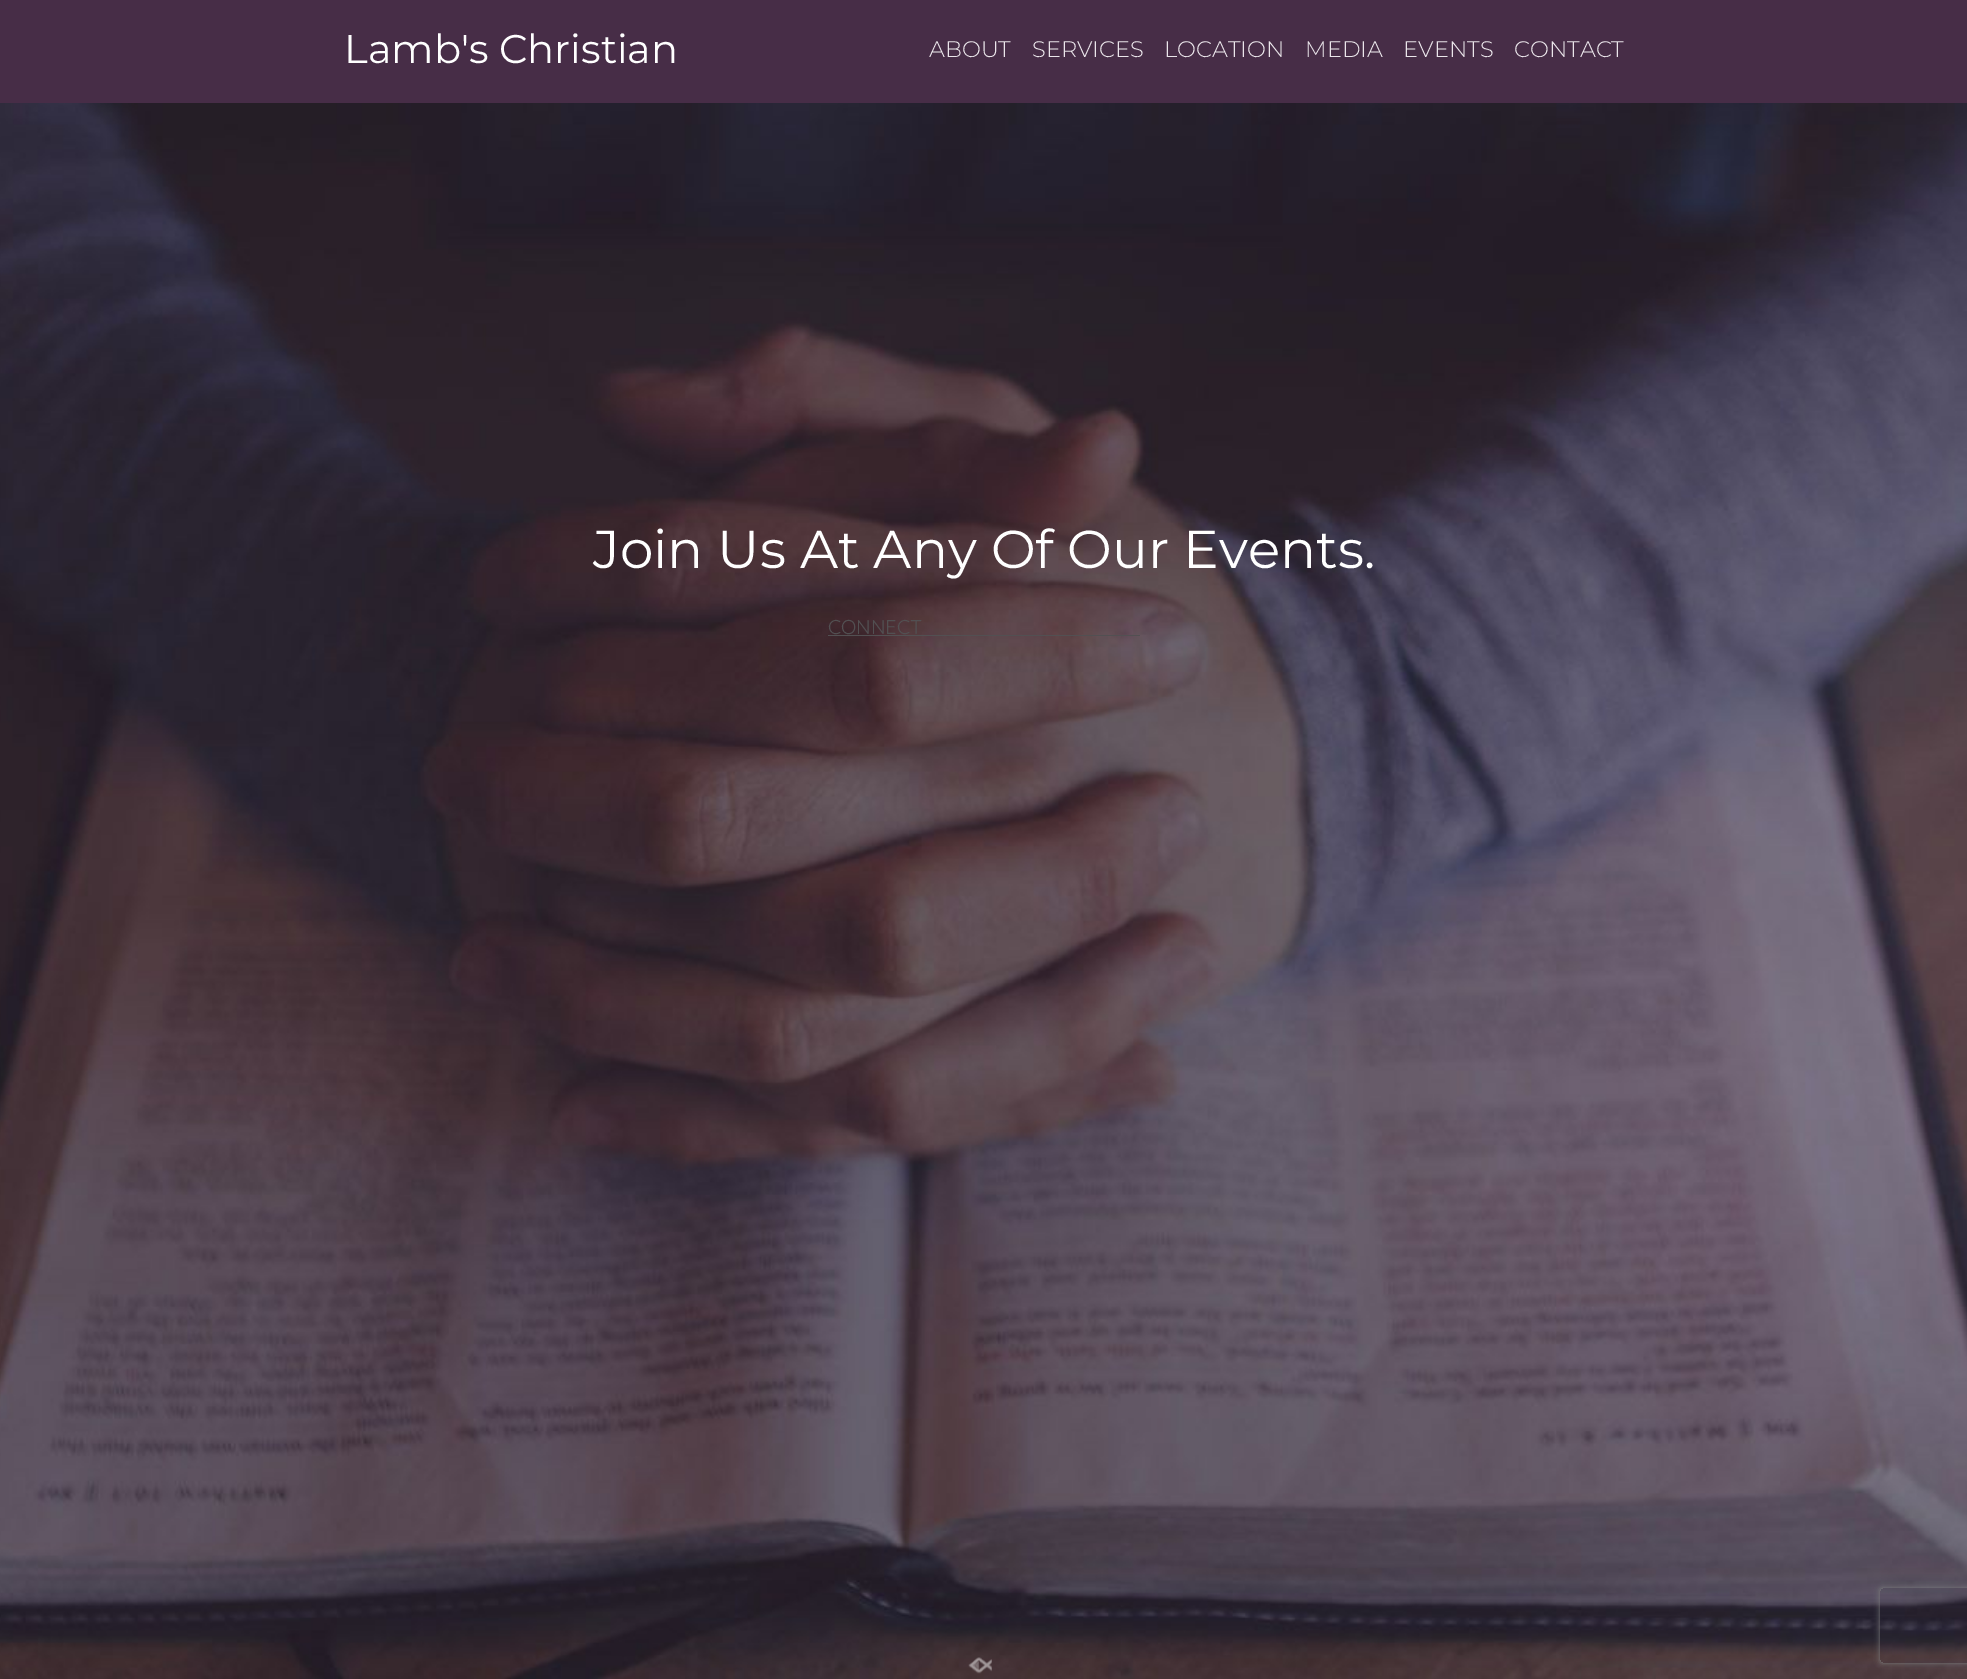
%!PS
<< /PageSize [1967 1679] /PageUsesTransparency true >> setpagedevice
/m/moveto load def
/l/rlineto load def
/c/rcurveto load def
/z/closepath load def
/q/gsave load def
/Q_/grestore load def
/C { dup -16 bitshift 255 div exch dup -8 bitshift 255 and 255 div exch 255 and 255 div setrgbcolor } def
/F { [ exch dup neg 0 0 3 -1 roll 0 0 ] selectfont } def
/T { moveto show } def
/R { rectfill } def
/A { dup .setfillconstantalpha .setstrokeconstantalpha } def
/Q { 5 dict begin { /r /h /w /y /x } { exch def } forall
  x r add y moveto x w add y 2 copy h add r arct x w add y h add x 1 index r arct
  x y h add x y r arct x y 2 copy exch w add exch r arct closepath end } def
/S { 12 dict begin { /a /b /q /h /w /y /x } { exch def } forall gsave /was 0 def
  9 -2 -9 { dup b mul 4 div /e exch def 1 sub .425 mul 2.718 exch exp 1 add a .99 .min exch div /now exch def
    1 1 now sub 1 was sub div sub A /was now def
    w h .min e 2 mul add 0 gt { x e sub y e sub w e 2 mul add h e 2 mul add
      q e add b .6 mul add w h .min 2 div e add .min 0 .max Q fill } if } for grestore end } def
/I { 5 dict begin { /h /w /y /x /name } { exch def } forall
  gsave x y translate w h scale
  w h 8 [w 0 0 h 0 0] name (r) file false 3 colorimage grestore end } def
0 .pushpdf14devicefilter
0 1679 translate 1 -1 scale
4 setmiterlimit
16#FFFFFF C
0 0 1967 1679 R
(1.rgb) 0 103 1967 1576 I
16#472D47 C
0 0 1967 103 R
/Montserrat-Regular 40 F
16#FFFFFF C
(Lamb's Christian) 344 63 T
/Montserrat-Light 22.5 F
16#EBE6EB C
(ABOUT) 929 57 T
(SERVICES) 1032 57 T
(LOCATION) 1164 57 T
(MEDIA) 1305 57 T
(EVENTS) 1403 57 T
(CONTACT) 1514 57 T
/Montserrat-Regular 53.3 F
16#FFFFFF C
(Join Us At Any Of Our Events.) 593 568 T
/Quicksand-Regular 20 F
16#525052 C
(CONNECT) 828 634 T
828 635 312 1 R
(2.rgb) 968 1657 24 17 I
q
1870 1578 m 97 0 l 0 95 l -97 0 l z 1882.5 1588 m 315 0 l 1.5 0 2.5 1 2.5 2.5 c 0 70 l 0 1.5 -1 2.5 -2.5 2.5 c -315 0 l -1.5 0 -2.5 -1 -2.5 -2.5 c 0 -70 l 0 -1.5 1 -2.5 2.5 -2.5 c z eoclip newpath
16#808080 C
1880 1588 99 75 2.5 3 1 S
Q_
.poppdf14devicefilter showpage
